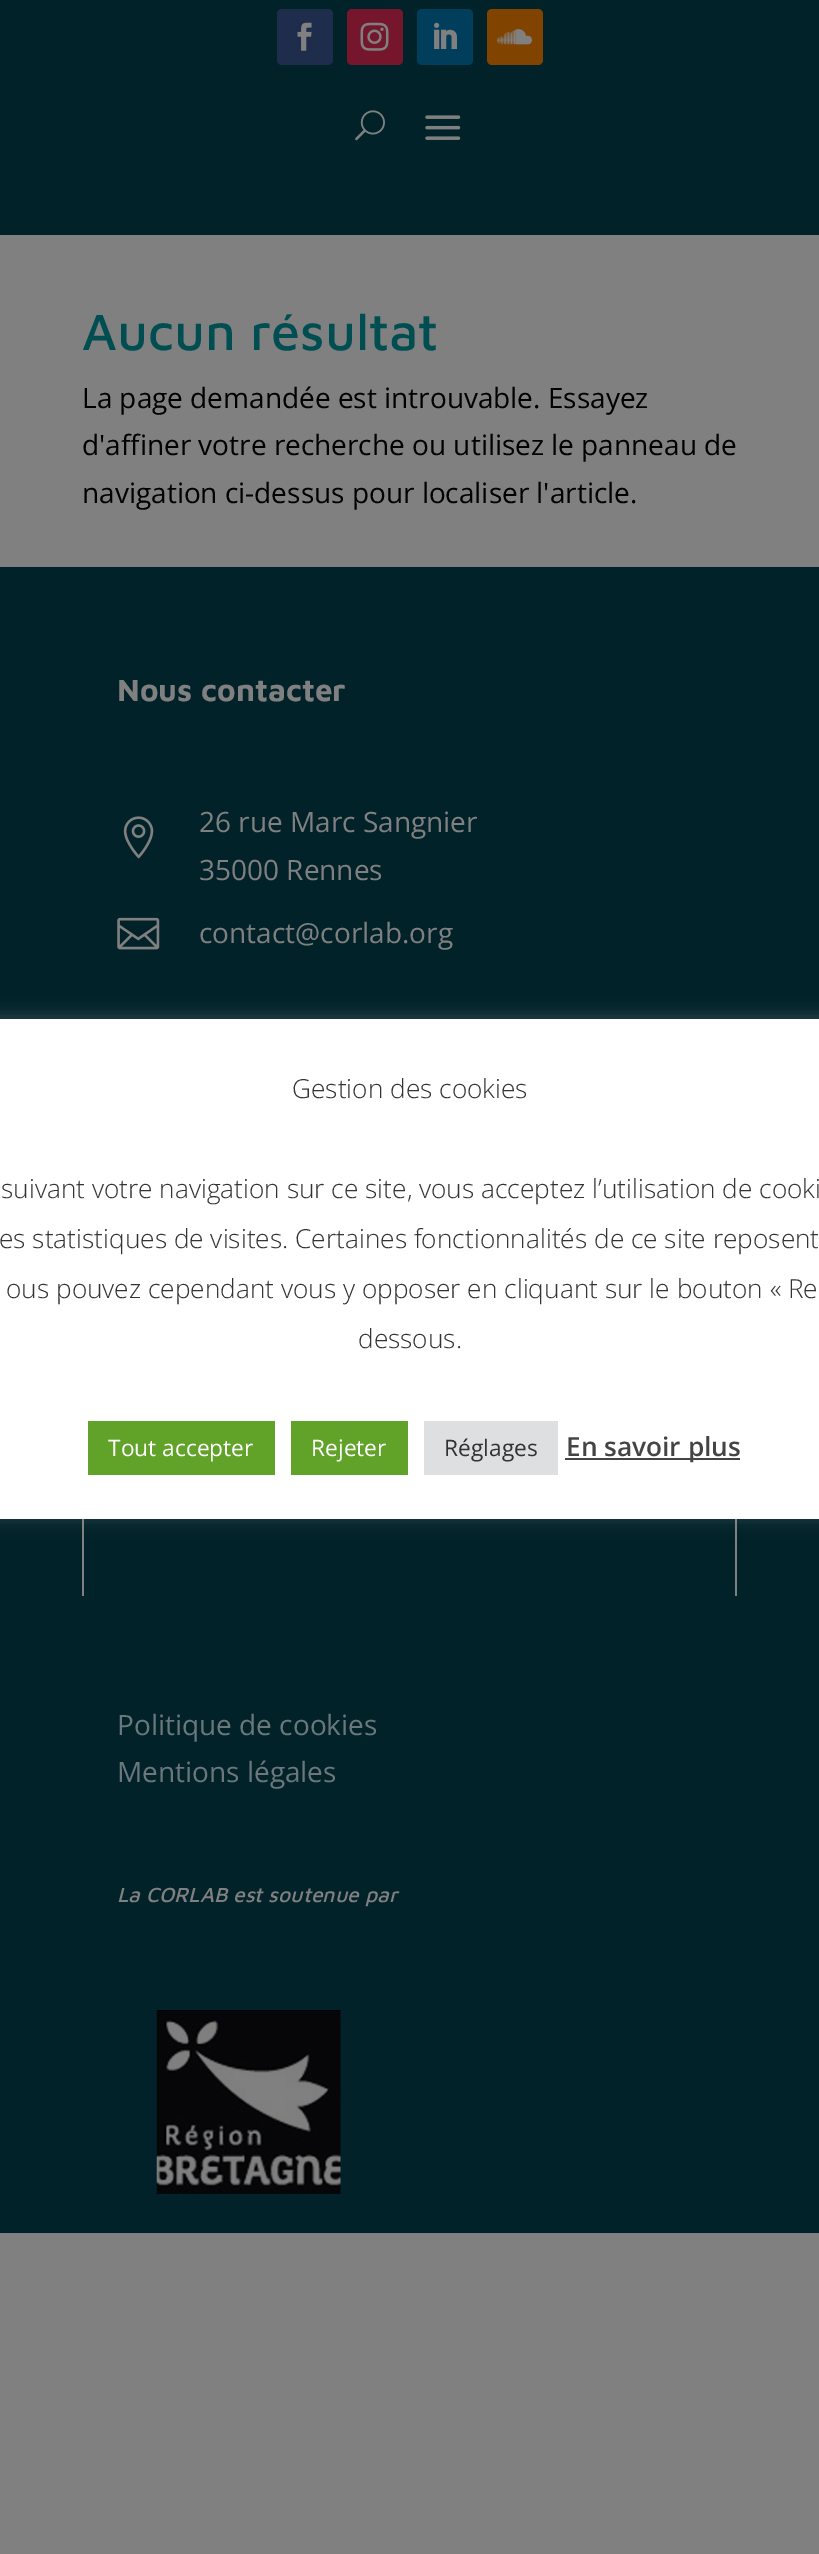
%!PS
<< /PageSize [819 2554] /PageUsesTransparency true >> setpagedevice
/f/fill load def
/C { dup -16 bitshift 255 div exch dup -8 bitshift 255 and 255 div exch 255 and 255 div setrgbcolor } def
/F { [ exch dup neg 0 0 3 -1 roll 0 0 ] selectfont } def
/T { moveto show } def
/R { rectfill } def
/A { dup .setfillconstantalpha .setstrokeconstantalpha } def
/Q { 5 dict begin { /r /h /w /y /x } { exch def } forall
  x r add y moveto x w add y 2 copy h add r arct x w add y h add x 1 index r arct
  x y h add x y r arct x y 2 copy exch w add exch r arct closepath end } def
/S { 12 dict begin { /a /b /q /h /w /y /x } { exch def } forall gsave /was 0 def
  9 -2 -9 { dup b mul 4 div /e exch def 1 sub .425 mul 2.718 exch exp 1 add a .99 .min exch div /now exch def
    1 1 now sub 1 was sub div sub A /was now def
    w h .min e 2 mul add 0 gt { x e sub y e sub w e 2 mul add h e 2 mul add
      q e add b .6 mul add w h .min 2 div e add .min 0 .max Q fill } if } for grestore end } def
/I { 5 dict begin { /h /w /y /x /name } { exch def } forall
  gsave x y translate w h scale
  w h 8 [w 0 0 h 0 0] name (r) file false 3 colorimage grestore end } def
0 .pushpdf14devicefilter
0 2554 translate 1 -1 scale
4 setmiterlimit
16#808080 C
0 0 819 2554 R
16#012229 C
0 0 819 235 R
16#1E2D4C C
277 9 56 56 5 Q f
(1.rgb) 297 22 15 29 I
16#75162D C
347 9 56 56 5 Q f
(2.rgb) 360 22 29 29 I
16#003E5B C
417 9 56 56 5 Q f
(3.rgb) 434 22 23 27 I
16#804400 C
487 9 56 56 5 Q f
(4.rgb) 497 29 35 16 I
(5.rgb) 355 110 30 31 I
(6.rgb) 425 115 36 25 I
/MavenPro-Medium 52.5 F
16#014E52 C
(Aucun résultat) 82 350 T
/OpenSans-Regular 28 F
16#000000 C
(La page demandée est introuvable. Essayez) 82 408 T
(d'affiner votre recherche ou utilisez le panneau de) 82 455 T
(navigation ci-dessus pour localiser l'article.) 82 503 T
16#012229 C
0 567 819 1666 R
/MavenPro-Bold 31.5 F
16#808080 C
(Nous contacter) 117 701 T
(7.rgb) 123 816 31 43 I
/OpenSans-Regular 28 F
(26 rue Marc Sangnier) 199 832 T
(35000 Rennes) 199 880 T
(8.rgb) 117 917 43 33 I
(contact@corlab.org) 199 943 T
735 1519 2 77 R
82 1519 2 77 R
16#6B777B C
(Politique de cookies) 117 1735 T
(Mentions légales) 117 1782 T
/MavenPro-MediumItalic 21 F
16#808080 C
(La CORLAB est soutenue par) 117 1902 T
(9.rgb) 156 2010 185 184 I
16#ACABAB C
-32 1017 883 500 5 9 .3 S
16#FFFFFF C
0 1019 819 500 R
/OpenSans-Light 26.25 F
16#333333 C
(Gestion des cookies) 292 1098 T
(suivant votre navigation sur ce site, vous acceptez l’utilisation de cooki) 1 1198 T
(es statistiques de visites. Certaines fonctionnalités de ce site reposent) -1 1248 T
(ous pouvez cependant vous y opposer en cliquant sur le bouton « Re) 6 1298 T
(dessous.) 358 1348 T
16#61A229 C
88 1421 187 54 R
/OpenSans-Regular 22.75 F
16#FFFFFF C
(Tout accepter) 108 1456 T
16#61A229 C
291 1421 117 54 R
16#FFFFFF C
(Rejeter) 311 1456 T
16#DEDFE0 C
424 1421 134 54 R
16#333333 C
(Réglages) 444 1456 T
16#444444 C
565 1458 175 2 R
/OpenSans-SemiBold 26.25 F
(En savoir plus) 566 1456 T
.poppdf14devicefilter showpage
